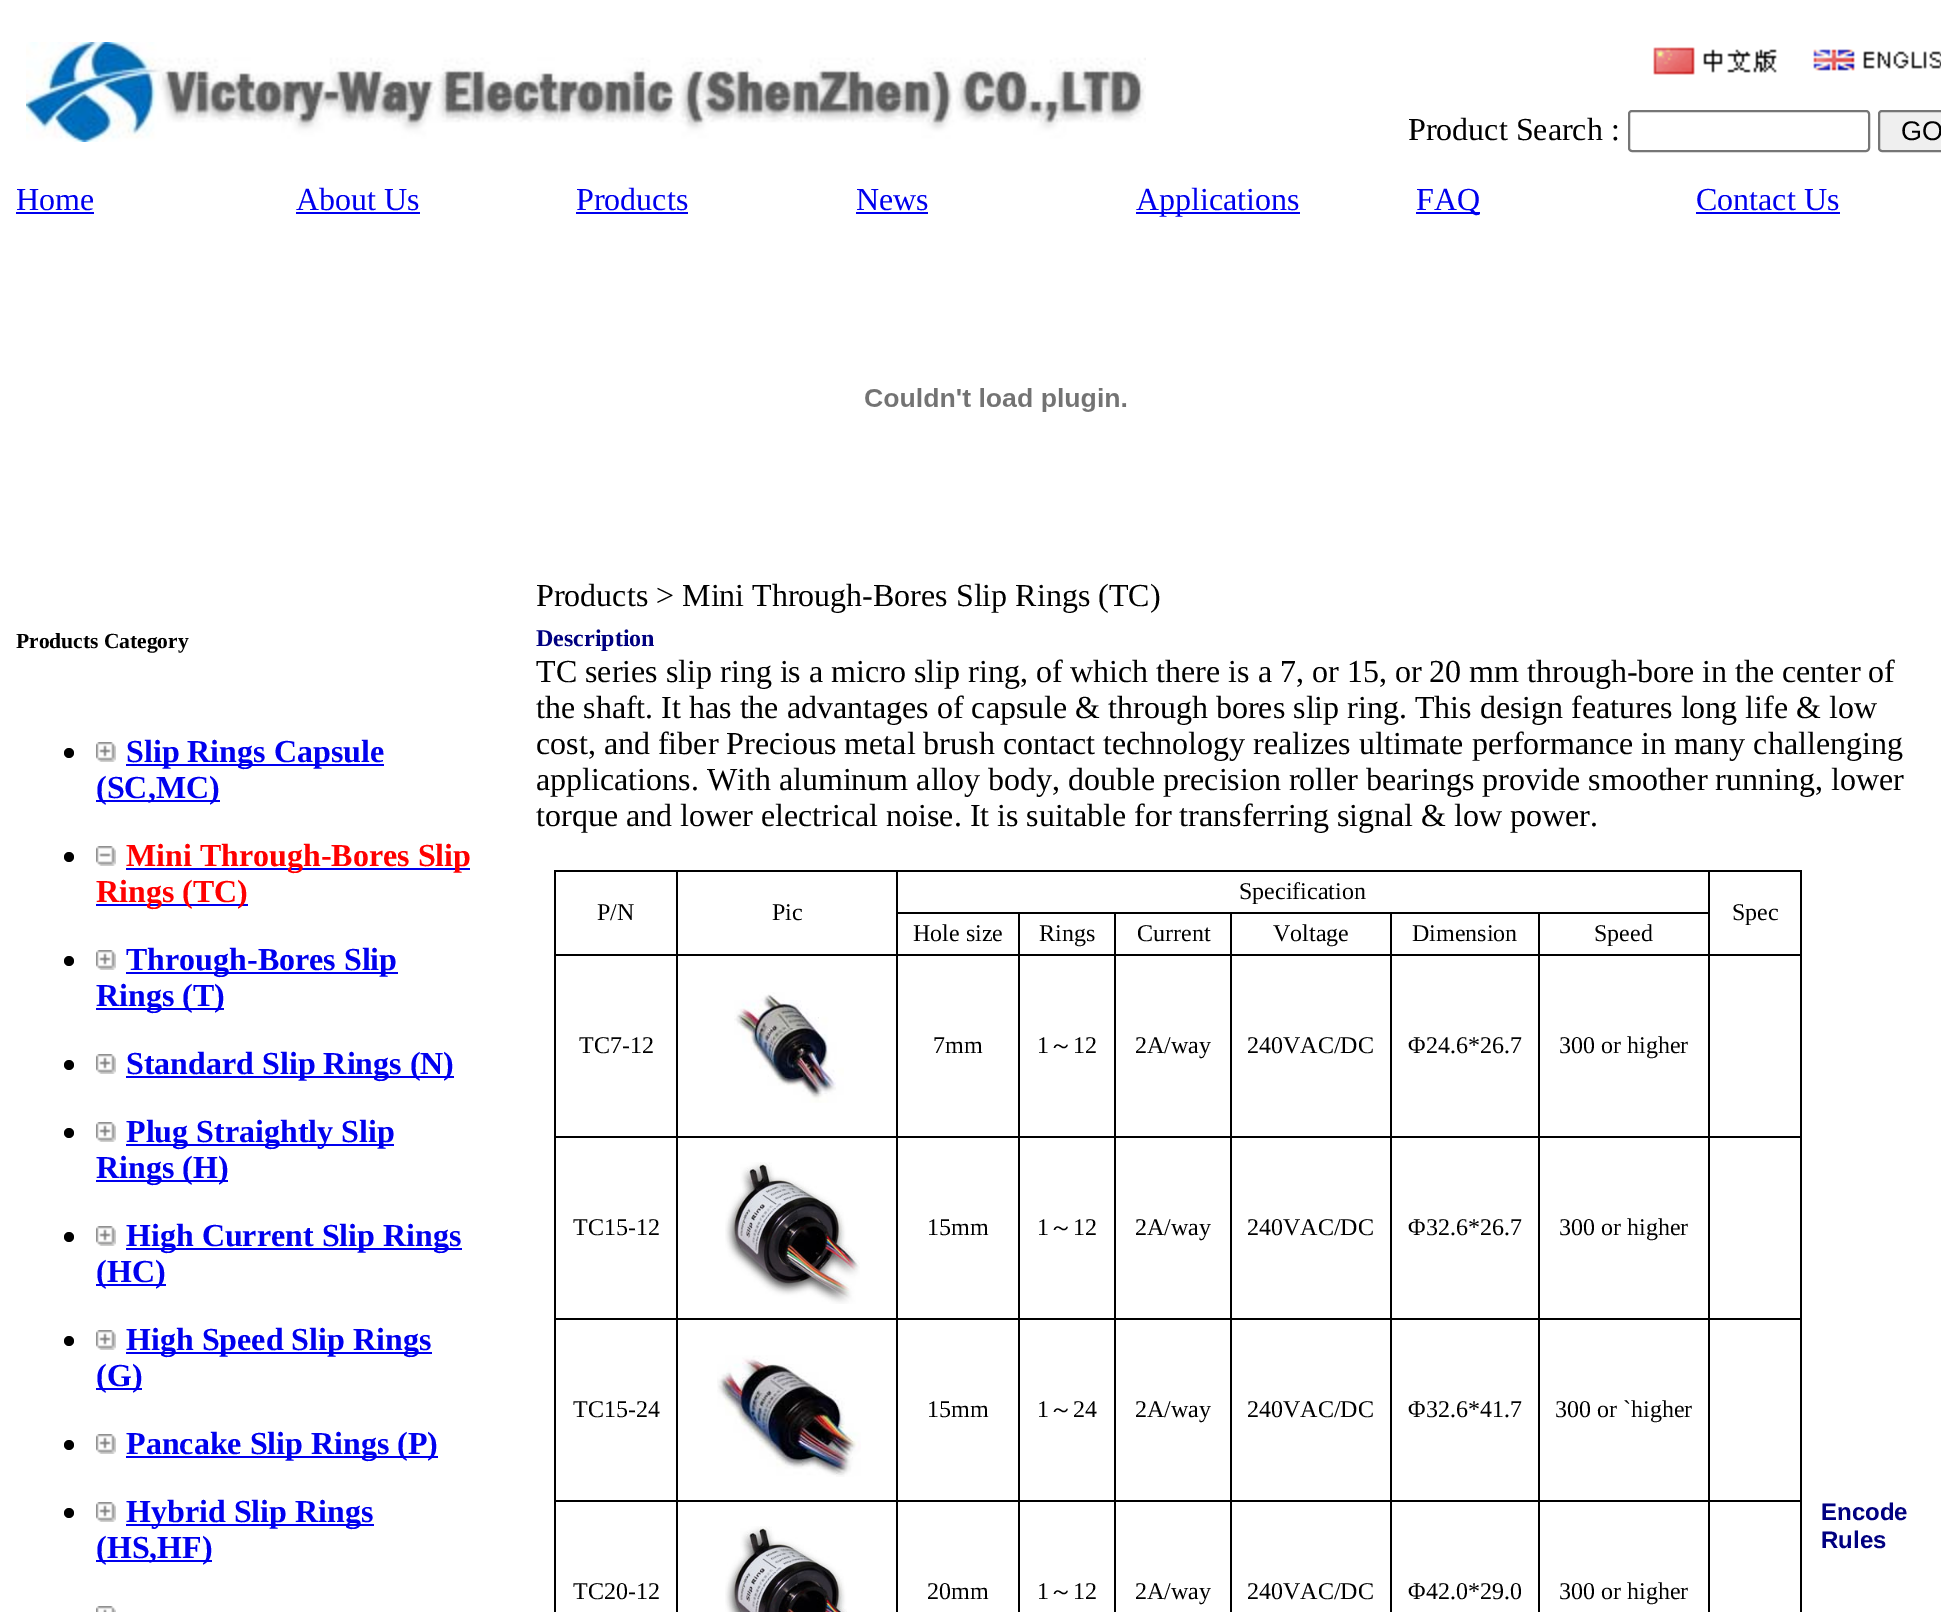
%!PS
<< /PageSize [1941 1612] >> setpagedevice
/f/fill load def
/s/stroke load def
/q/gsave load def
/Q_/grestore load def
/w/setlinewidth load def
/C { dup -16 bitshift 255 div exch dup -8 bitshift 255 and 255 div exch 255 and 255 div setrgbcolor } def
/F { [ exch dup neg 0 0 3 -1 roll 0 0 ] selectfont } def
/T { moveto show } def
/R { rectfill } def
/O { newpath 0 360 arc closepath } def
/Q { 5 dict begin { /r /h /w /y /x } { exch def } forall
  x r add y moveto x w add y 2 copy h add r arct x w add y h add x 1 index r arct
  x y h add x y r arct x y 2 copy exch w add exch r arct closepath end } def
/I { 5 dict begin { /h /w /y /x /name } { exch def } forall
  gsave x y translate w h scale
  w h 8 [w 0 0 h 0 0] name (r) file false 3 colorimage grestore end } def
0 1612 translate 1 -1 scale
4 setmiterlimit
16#FFFFFF C
0 0 1941 1612 R
(1.rgb) 26 42 1120 100 I
(2.rgb) 1653 47 124 28 I
(3.rgb) 1813 49 128 22 I
/LiberationSerif-Regular 32 F
16#000000 C
(Product Search :) 1408 140 T
16#767676 C
2 w
1629 111 240 40 3 Q s
16#EFEFEF C
1879 111 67 40 3 Q q f Q_
16#767676 C
s
/LiberationSans-Regular 27 F
16#000000 C
(GO) 1901 140 T
/LiberationSerif-Regular 32 F
16#0000EE C
(Home) 16 210 T
16 212 78 2 R
(About Us) 296 210 T
296 212 124 2 R
(Products) 576 210 T
576 212 112 2 R
(News) 856 210 T
856 212 72 2 R
1136 212 164 2 R
(Applications) 1136 210 T
1416 212 64 2 R
(FAQ) 1416 210 T
(Contact Us) 1696 210 T
1696 212 144 2 R
(4.rgb) 865 388 262 24 I
/LiberationSerif-Bold 21.5 F
16#000000 C
(Products Category) 16 648 T
69 753 5 O f
(5.rgb) 96 742 20 20 I
16#0000EE C
126 764 258 2 R
/LiberationSerif-Bold 32 F
(Slip Rings Capsule) 126 762 T
96 800 124 2 R
(\(SC,MC\)) 96 798 T
16#000000 C
69 857 5 O f
(6.rgb) 96 846 20 20 I
16#0000EE C
126 868 344 2 R
16#FF0000 C
(Mini Through-Bores Slip) 126 866 T
16#0000EE C
96 904 152 2 R
16#FF0000 C
(Rings \(TC\)) 96 902 T
16#000000 C
69 961 5 O f
(5.rgb) 96 950 20 20 I
16#0000EE C
126 972 272 2 R
(Through-Bores Slip) 126 970 T
96 1008 128 2 R
(Rings \(T\)) 96 1006 T
16#000000 C
69 1065 5 O f
(5.rgb) 96 1054 20 20 I
16#0000EE C
126 1076 328 2 R
(Standard Slip Rings \(N\)) 126 1074 T
16#000000 C
69 1133 5 O f
(5.rgb) 96 1122 20 20 I
16#0000EE C
126 1144 268 2 R
(Plug Straightly Slip) 126 1142 T
96 1180 132 2 R
(Rings \(H\)) 96 1178 T
16#000000 C
69 1237 5 O f
(5.rgb) 96 1226 20 20 I
16#0000EE C
126 1248 336 2 R
(High Current Slip Rings) 126 1246 T
96 1284 70 2 R
(\(HC\)) 96 1282 T
16#000000 C
69 1341 5 O f
(5.rgb) 96 1330 20 20 I
16#0000EE C
126 1352 306 2 R
(High Speed Slip Rings) 126 1350 T
96 1388 46 2 R
(\(G\)) 96 1386 T
16#000000 C
69 1445 5 O f
(5.rgb) 96 1434 20 20 I
16#0000EE C
126 1456 312 2 R
(Pancake Slip Rings \(P\)) 126 1454 T
16#000000 C
69 1513 5 O f
(5.rgb) 96 1502 20 20 I
16#0000EE C
126 1524 248 2 R
(Hybrid Slip Rings) 126 1522 T
96 1560 116 2 R
(\(HS,HF\)) 96 1558 T
(7.rgb) 96 1606 20 6 I
/LiberationSerif-Regular 32 F
16#000000 C
(Products > Mini Through-Bores Slip Rings \(TC\)) 536 606 T
/LiberationSerif-Bold 24 F
16#000080 C
(Description) 536 646 T
/LiberationSerif-Regular 32 F
16#000000 C
(TC series slip ring is a micro slip ring, of which there is a 7, or 15, or 20 mm through-bore in the center of) 536 682 T
(the shaft. It has the advantages of capsule & through bores slip ring. This design features long life & low) 536 718 T
(cost, and fiber Precious metal brush contact technology realizes ultimate performance in many challenging) 536 754 T
(applications. With aluminum alloy body, double precision roller bearings provide smoother running, lower) 536 790 T
(torque and lower electrical noise. It is suitable for transferring signal & low power.) 536 826 T
554 870 1248 2 R
1708 1500 2 112 R
1800 954 2 658 R
1708 1500 94 2 R
1708 1318 2 184 R
1708 1318 94 2 R
1708 1136 2 184 R
1708 1136 94 2 R
1708 912 2 226 R
1708 870 2 44 R
1538 1500 2 112 R
1538 1500 172 2 R
1538 1318 2 184 R
1538 1318 172 2 R
1538 1136 2 184 R
1538 1136 172 2 R
1538 954 2 184 R
1538 954 172 2 R
1538 912 2 44 R
1390 1500 2 112 R
1390 1500 150 2 R
1390 1318 2 184 R
1390 1318 150 2 R
1390 1136 2 184 R
1390 1136 150 2 R
1390 954 2 184 R
1390 954 150 2 R
1390 912 2 44 R
1230 1500 2 112 R
1230 1500 162 2 R
1230 1318 2 184 R
1230 1318 162 2 R
1230 1136 2 184 R
1230 1136 162 2 R
1230 954 2 184 R
1230 954 162 2 R
1230 912 2 44 R
1114 1500 2 112 R
1114 1500 118 2 R
1114 1318 2 184 R
1114 1318 118 2 R
1114 1136 2 184 R
1114 1136 118 2 R
1114 954 2 184 R
1114 954 118 2 R
1114 912 2 44 R
1018 1500 2 112 R
1018 1500 98 2 R
1018 1318 2 184 R
1018 1318 98 2 R
1018 1136 2 184 R
1018 1136 98 2 R
1018 954 2 184 R
1018 954 98 2 R
1018 912 2 44 R
896 912 814 2 R
/LiberationSerif-Regular 24 F
(Specification) 1239 899 T
896 1500 2 112 R
896 1500 124 2 R
896 1318 2 184 R
896 1318 124 2 R
896 1136 2 184 R
896 1136 124 2 R
896 954 2 184 R
896 954 124 2 R
896 870 2 86 R
676 1500 2 112 R
676 1500 222 2 R
676 1318 2 184 R
676 1318 222 2 R
676 1136 2 184 R
676 1136 222 2 R
676 954 2 184 R
676 954 222 2 R
676 870 2 86 R
554 1500 2 112 R
554 1500 124 2 R
554 1318 2 184 R
554 1318 124 2 R
554 1136 2 184 R
554 1136 124 2 R
554 954 2 184 R
554 954 124 2 R
554 870 2 86 R
(P/N) 597 920 T
(Pic) 772 920 T
1800 870 2 86 R
1708 954 94 2 R
(Spec) 1732 920 T
(Hole size) 913 941 T
(Rings) 1039 941 T
(Current) 1137 941 T
(Voltage) 1273 941 T
(Dimension) 1412 941 T
(Speed) 1594 941 T
(TC7-12) 579 1053 T
(8.rgb) 734 992 110 111 I
(7mm) 933 1053 T
(1) 1037 1053 T
/WenQuanYiZenHei-Medium 24 F
(～) 1049 1053 T
/LiberationSerif-Regular 24 F
(12) 1073 1053 T
(2A/way) 1135 1053 T
(240VAC/DC) 1247 1053 T
(Φ24.6*26.7) 1408 1053 T
(300 or higher) 1559 1053 T
(TC15-12) 573 1235 T
(9.rgb) 725 1162 135 142 I
(15mm) 927 1235 T
(1) 1037 1235 T
/WenQuanYiZenHei-Medium 24 F
(～) 1049 1235 T
/LiberationSerif-Regular 24 F
(12) 1073 1235 T
(2A/way) 1135 1235 T
(240VAC/DC) 1247 1235 T
(Φ32.6*26.7) 1408 1235 T
(300 or higher) 1559 1235 T
(TC15-24) 573 1417 T
(10.rgb) 717 1355 144 122 I
(15mm) 927 1417 T
(1) 1037 1417 T
/WenQuanYiZenHei-Medium 24 F
(～) 1049 1417 T
/LiberationSerif-Regular 24 F
(24) 1073 1417 T
(2A/way) 1135 1417 T
(240VAC/DC) 1247 1417 T
(Φ32.6*41.7) 1408 1417 T
(300 or `higher) 1555 1417 T
(TC20-12) 573 1599 T
(11.rgb) 725 1526 122 86 I
(20mm) 927 1599 T
(1) 1037 1599 T
/WenQuanYiZenHei-Medium 24 F
(～) 1049 1599 T
/LiberationSerif-Regular 24 F
(12) 1073 1599 T
(2A/way) 1135 1599 T
(240VAC/DC) 1247 1599 T
(Φ42.0*29.0) 1408 1599 T
(300 or higher) 1559 1599 T
/LiberationSans-Bold 24 F
16#000080 C
(Encode) 1821 1520 T
(Rules) 1821 1548 T
showpage
